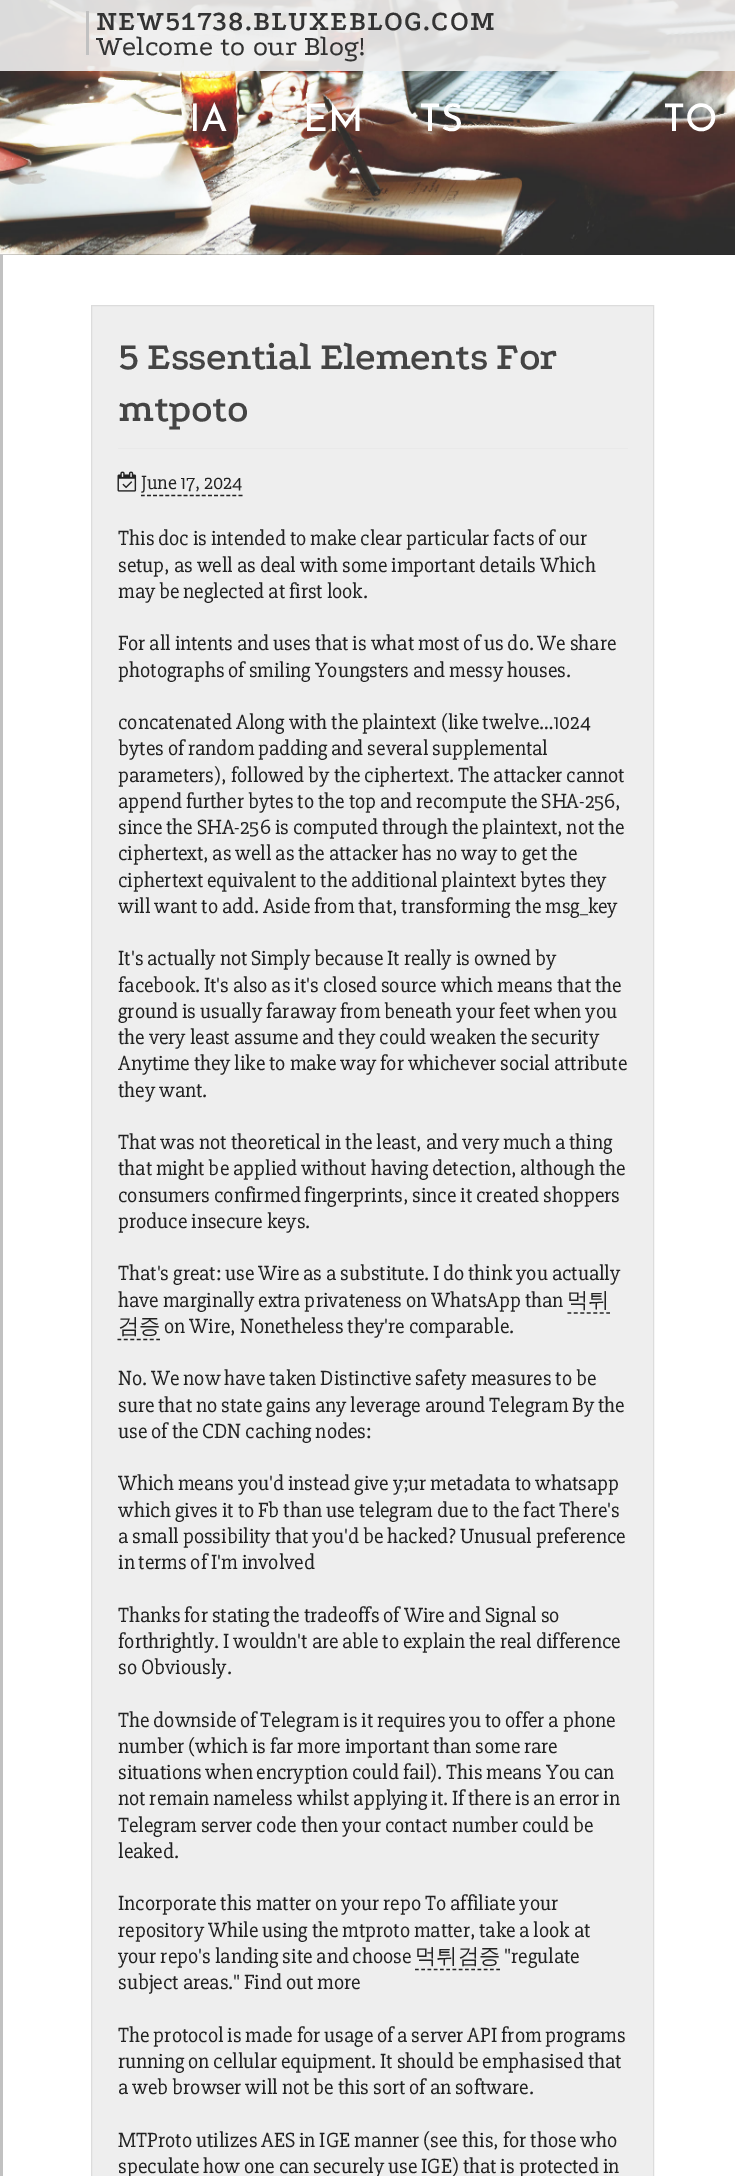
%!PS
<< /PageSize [735 2176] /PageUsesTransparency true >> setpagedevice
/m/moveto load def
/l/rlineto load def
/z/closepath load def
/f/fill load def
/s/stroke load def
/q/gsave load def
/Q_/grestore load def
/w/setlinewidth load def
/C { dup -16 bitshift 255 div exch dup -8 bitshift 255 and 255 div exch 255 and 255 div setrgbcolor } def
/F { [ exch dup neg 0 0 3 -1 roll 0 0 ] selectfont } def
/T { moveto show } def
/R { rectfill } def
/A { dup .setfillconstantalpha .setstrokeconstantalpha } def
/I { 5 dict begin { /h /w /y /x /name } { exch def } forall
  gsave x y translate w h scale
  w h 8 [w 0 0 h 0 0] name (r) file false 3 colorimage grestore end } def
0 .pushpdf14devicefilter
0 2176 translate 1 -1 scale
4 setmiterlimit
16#FFFFFF C
0 0 735 2176 R
(1.rgb) 0 0 735 255 I
0.9 A
16#EEEEEE C
0 0 735 71 R
1 A
16#C1C1C1 C
86 11 3 44 R
/Podkova-SemiBold 28.75 F
16#333333 C
96 30 m 1.25 0 (NEW51738.BLUXEBLOG.COM) ashow
/Podkova-Regular 28.75 F
(Welcome to our Blog!) 96 55 T
/ReemKufi-Regular 38 F
16#FFFFFF C
(IA) 189 131 T
(EM) 303 131 T
(TS) 419 131 T
(TO) 663 131 T
16#C1C1C1 C
0 255 3 1921 R
16#EEEEEE C
91.5 305.5 m 562 0 l 0 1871 l -562 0 l z q f Q_
16#DCDCDC C
s
/Podkova-SemiBold 40 F
16#444444 C
118 369 m -.75 0 (5 Essential Elements For) ashow
118 421 m -.75 0 (mtpoto) ashow
16#E9E9E9 C
118 448 510 1 R
(2.rgb) 117 471 20 21 I
/Slabo27px-Regular 20 F
16#222222 C
(June 17, 2024) 141 489 T
1.2 w
[3.75 2.35] 0 setdash
141 495.5 m 101.5 0 l s
/Slabo27px-Regular 21.25 F
(This doc is intended to make clear particular facts of our) 118 545 T
(setup, as well as deal with some important details Which) 118 572 T
(may be neglected at first look.) 118 598 T
(For all intents and uses that is what most of us do. We share) 118 650 T
(photographs of smiling Youngsters and messy houses.) 118 677 T
(concatenated Along with the plaintext \(like twelve…1024) 118 729 T
(bytes of random padding and several supplemental) 118 755 T
(parameters\), followed by the ciphertext. The attacker cannot) 118 782 T
(append further bytes to the top and recompute the SHA-256,) 118 808 T
(since the SHA-256 is computed through the plaintext, not the) 118 834 T
(ciphertext, as well as the attacker has no way to get the) 118 860 T
(ciphertext equivalent to the additional plaintext bytes they) 118 887 T
(will want to add. Aside from that, transforming the msg_key) 118 913 T
(It's actually not Simply because It really is owned by) 118 965 T
(facebook. It's also as it's closed source which means that the) 118 992 T
(ground is usually faraway from beneath your feet when you) 118 1018 T
(the very least assume and they could weaken the security) 118 1044 T
(Anytime they like to make way for whichever social attribute) 118 1070 T
(they want.) 118 1097 T
(That was not theoretical in the least, and very much a thing) 118 1149 T
(that might be applied without having detection, although the) 118 1175 T
(consumers confirmed fingerprints, since it created shoppers) 118 1202 T
(produce insecure keys.) 118 1228 T
(That's great: use Wire as a substitute. I do think you actually) 118 1280 T
(have marginally extra privateness on WhatsApp than) 118 1307 T
/WenQuanYiZenHei-Medium 21.25 F
(먹튀) 567 1307 T
[3.75 2.71] 0 setdash
567.5 1313 m 42.5 0 l s
(검증) 118 1333 T
117.5 1339.5 m 42.5 0 l s
/Slabo27px-Regular 21.25 F
(on Wire, Nonetheless they're comparable.) 164 1333 T
(No. We now have taken Distinctive safety measures to be) 118 1385 T
(sure that no state gains any leverage around Telegram By the) 118 1412 T
(use of the CDN caching nodes:) 118 1438 T
(Which means you'd instead give y;ur metadata to whatsapp) 118 1490 T
(which gives it to Fb than use telegram due to the fact There's) 118 1517 T
(a small possibility that you'd be hacked? Unusual preference) 118 1543 T
(in terms of I'm involved) 118 1569 T
(Thanks for stating the tradeoffs of Wire and Signal so) 118 1622 T
(forthrightly. I wouldn't are able to explain the real difference) 118 1648 T
(so Obviously.) 118 1674 T
(The downside of Telegram is it requires you to offer a phone) 118 1727 T
(number \(which is far more important than some rare) 118 1753 T
(situations when encryption could fail\). This means You can) 118 1779 T
(not remain nameless whilst applying it. If there is an error in) 118 1805 T
(Telegram server code then your contact number could be) 118 1832 T
(leaked.) 118 1858 T
(Incorporate this matter on your repo To affiliate your) 118 1910 T
(repository While using the mtproto matter, take a look at) 118 1937 T
(your repo's landing site and choose) 118 1963 T
/WenQuanYiZenHei-Medium 21.25 F
(먹튀검증) 415 1963 T
[3.75 2.5] 0 setdash
415 1969.5 m 85 0 l s
/Slabo27px-Regular 21.25 F
("regulate) 504 1963 T
(subject areas." Find out more) 118 1989 T
(The protocol is made for usage of a server API from programs) 118 2042 T
(running on cellular equipment. It should be emphasised that) 118 2068 T
(a web browser will not be this sort of an software.) 118 2094 T
(MTProto utilizes AES in IGE manner \(see this, for those who) 118 2147 T
(speculate how one can securely use IGE\) that is protected in) 118 2173 T
.poppdf14devicefilter showpage
